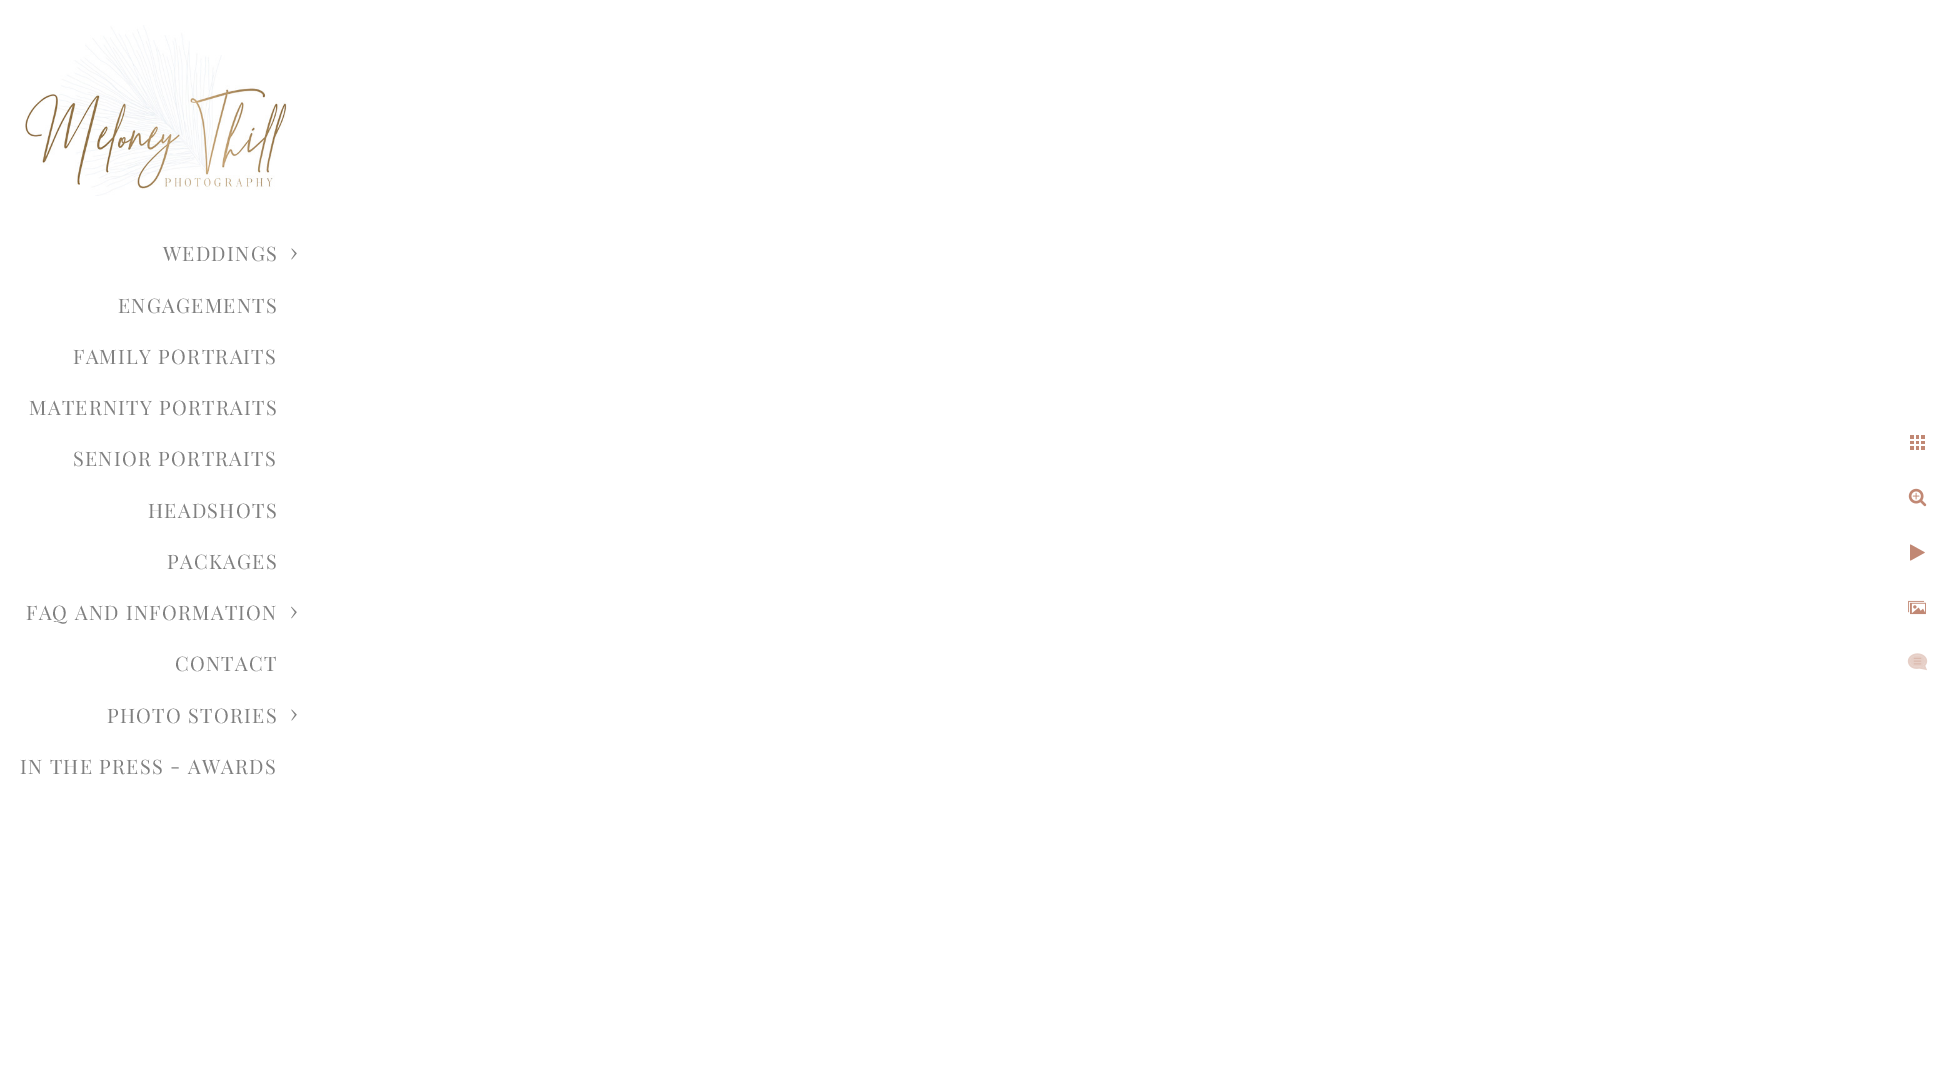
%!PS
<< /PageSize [1951 1078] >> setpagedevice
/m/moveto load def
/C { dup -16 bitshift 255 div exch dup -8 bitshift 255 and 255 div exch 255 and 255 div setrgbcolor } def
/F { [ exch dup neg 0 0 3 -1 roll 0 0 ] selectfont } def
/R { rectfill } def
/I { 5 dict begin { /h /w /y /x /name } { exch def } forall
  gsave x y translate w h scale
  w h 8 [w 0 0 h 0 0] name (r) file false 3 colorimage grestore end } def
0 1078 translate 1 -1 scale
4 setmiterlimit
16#FFFFFF C
0 0 1951 1078 R
(1.rgb) 25 25 263 171 I
/PlayfairDisplaySC-Regular 20 F
16#808080 C
163 261 m 1.25 0 (WEDDINGS) ashow
(2.rgb) 291 248 6 12 I
118 313 m 1.25 0 (ENGAGEMENTS) ashow
73 364 m 1.25 0 (FAMILY PORTRAITS) ashow
29 415 m 1.25 0 (MATERNITY PORTRAITS) ashow
73 466 m 1.25 0 (SENIOR PORTRAITS) ashow
148 518 m 1.25 0 (HEADSHOTS) ashow
167 569 m 1.25 0 (PACKAGES) ashow
26 620 m 1.25 0 (FAQ AND INFORMATION) ashow
(3.rgb) 291 606 6 13 I
175 671 m 1.25 0 (CONTACT) ashow
107 723 m 1.25 0 (PHOTO STORIES) ashow
(4.rgb) 291 709 6 12 I
20 774 m 1.25 0 (IN THE PRESS - AWARDS) ashow
(5.rgb) 1910 435 15 15 I
(6.rgb) 1908 488 19 19 I
(7.rgb) 1910 544 15 17 I
(8.rgb) 1908 600 18 15 I
(9.rgb) 1907 653 21 18 I
showpage
